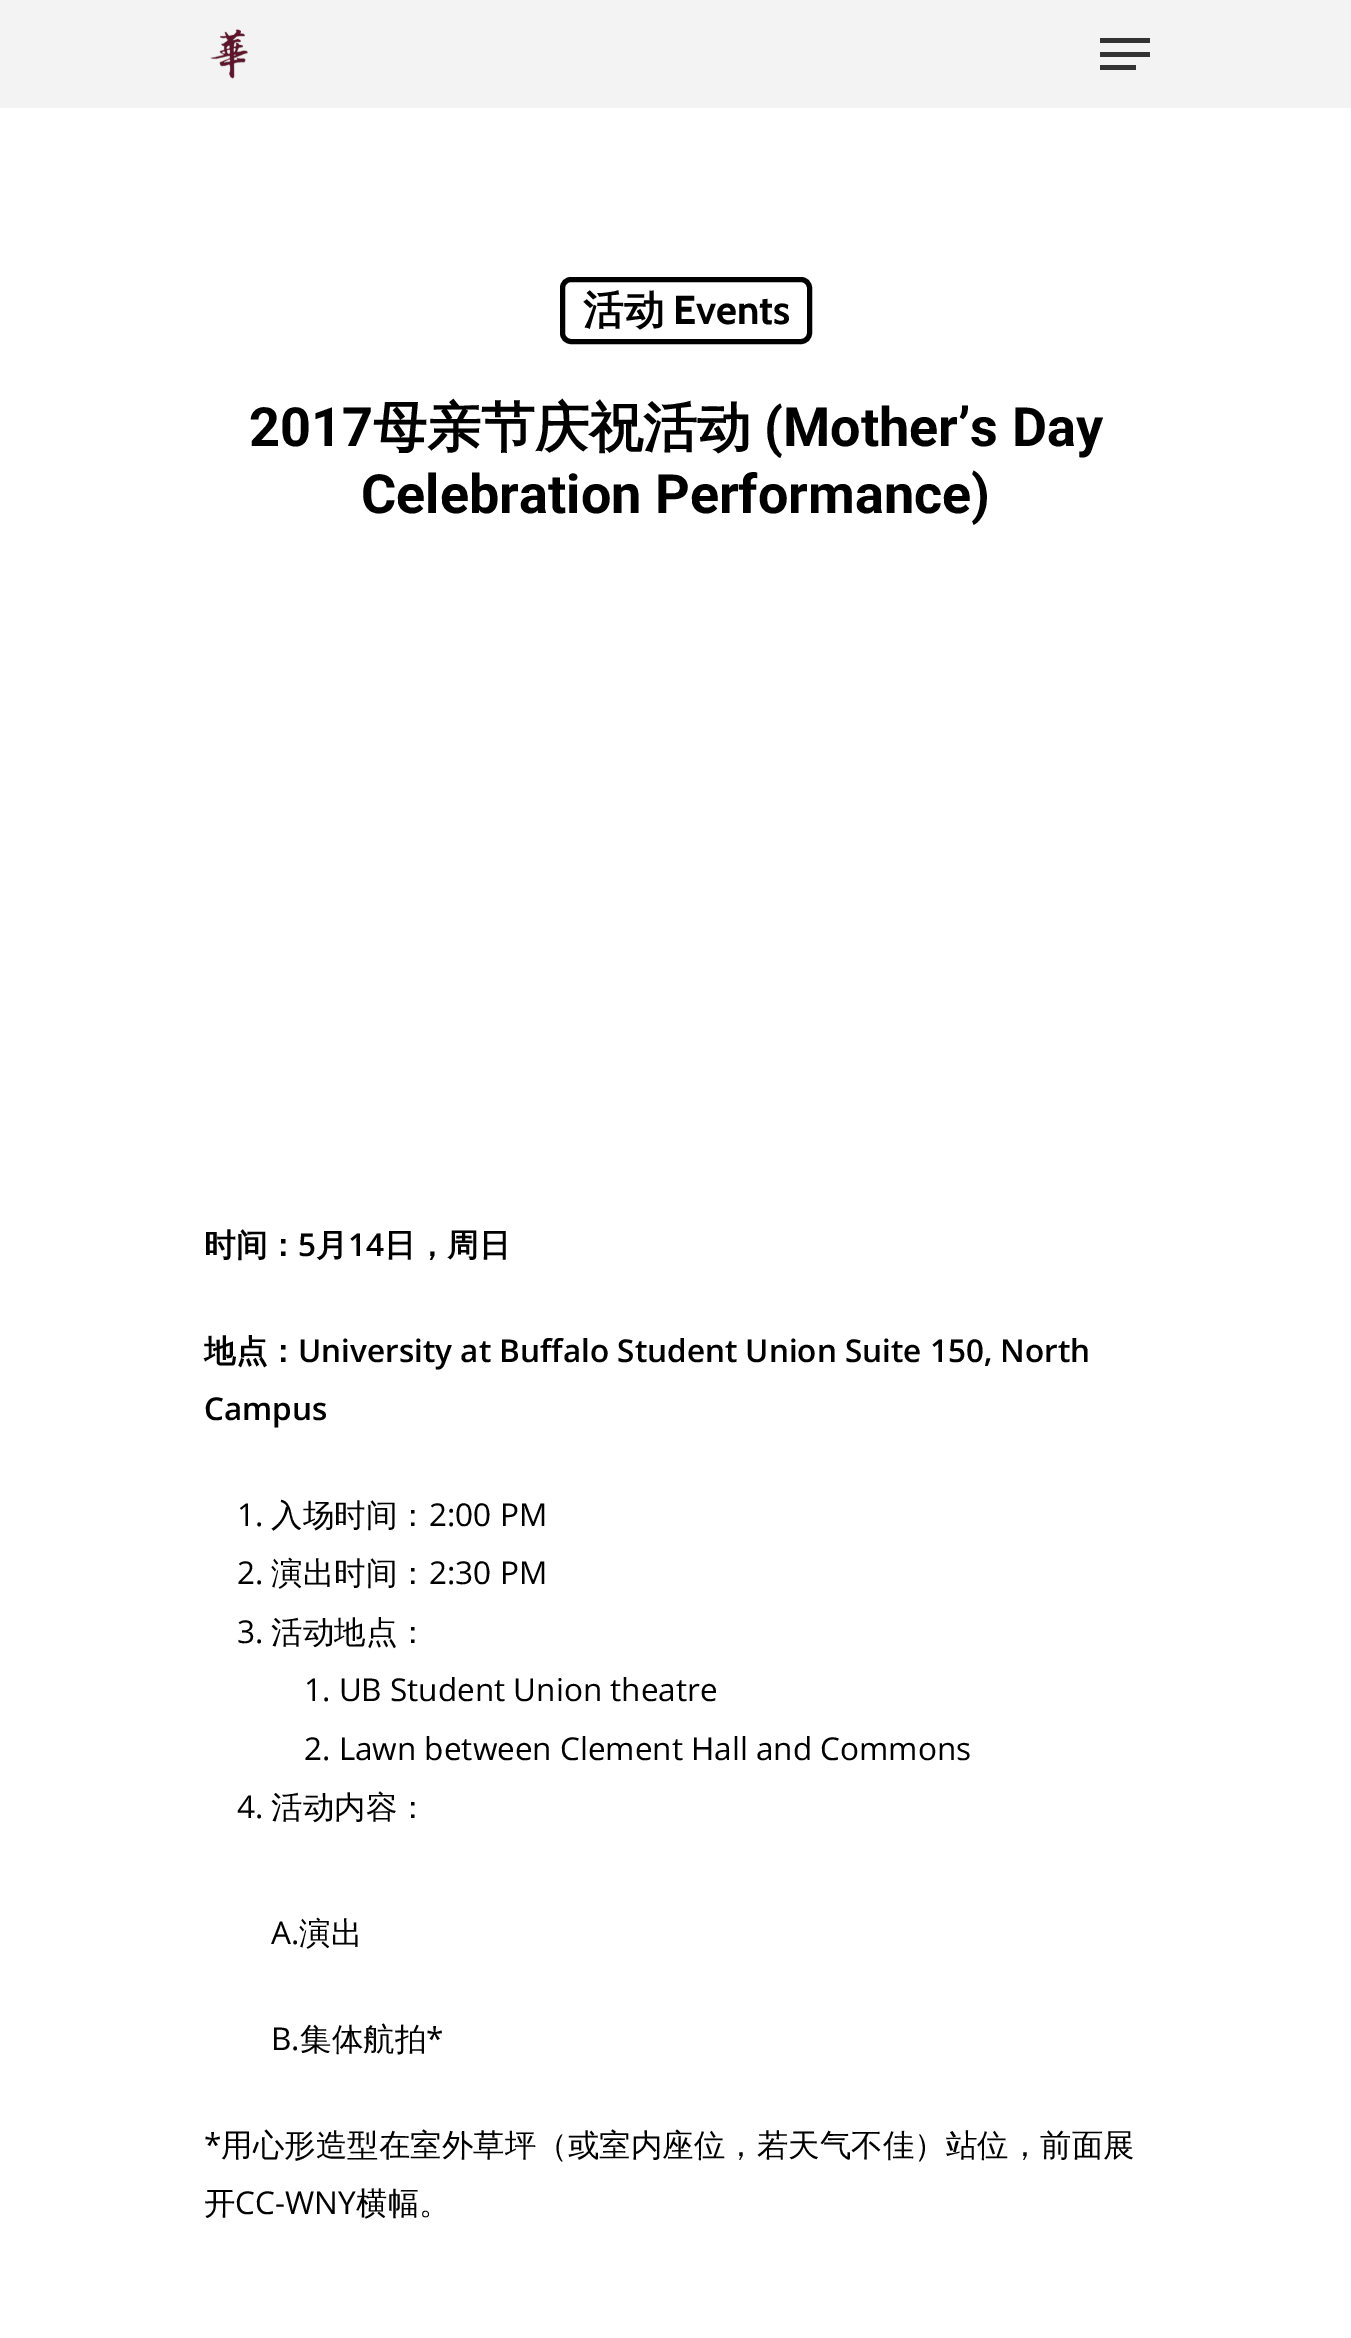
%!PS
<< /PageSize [1351 2338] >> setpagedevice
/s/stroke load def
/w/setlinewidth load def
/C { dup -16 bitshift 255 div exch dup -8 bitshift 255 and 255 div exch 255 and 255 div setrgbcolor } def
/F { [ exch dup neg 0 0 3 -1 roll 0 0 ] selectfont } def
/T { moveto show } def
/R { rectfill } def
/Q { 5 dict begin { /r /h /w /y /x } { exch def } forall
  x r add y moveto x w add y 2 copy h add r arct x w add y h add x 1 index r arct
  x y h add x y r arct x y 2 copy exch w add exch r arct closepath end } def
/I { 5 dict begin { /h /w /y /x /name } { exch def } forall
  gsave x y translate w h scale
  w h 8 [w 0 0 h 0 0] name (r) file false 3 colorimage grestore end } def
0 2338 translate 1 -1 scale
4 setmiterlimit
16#FFFFFF C
0 0 1351 2338 R
16#F3F3F3 C
0 0 1351 108 R
(1.rgb) 210 29 38 50 I
16#333333 C
1100 38 50 5 R
1100 65 36 5 R
1100 52 50 5 R
16#000000 C
5 w
562.5 279.5 247 62 8.5 Q s
/WenQuanYiZenHei-Bold 40.5 F
(活动) 583 324 T
/Cabin-Bold 40.5 F
(Events) 673 324 T
/Roboto-Bold 54 F
(2017) 249 446 T
/WenQuanYiZenHei-Bold 54 F
(母亲节庆祝活动) 373 446 T
/Roboto-Bold 54 F
(\(Mother’s Day) 764 446 T
(Celebration Performance\)) 361 513 T
/WenQuanYiZenHei-Bold 31.5 F
(时间：) 204 1256 T
/OpenSans-SemiBold 31.5 F
(5) 298 1256 T
/WenQuanYiZenHei-Bold 31.5 F
(月) 316 1256 T
/OpenSans-SemiBold 31.5 F
(14) 348 1256 T
/WenQuanYiZenHei-Bold 31.5 F
(日，周日) 384 1256 T
(地点：) 204 1362 T
/OpenSans-SemiBold 31.5 F
(University at Buffalo Student Union Suite 150, North) 298 1362 T
(Campus) 204 1420 T
/OpenSans-Regular 31.5 F
(1.) 237 1526 T
/WenQuanYiZenHei-Medium 31.5 F
(入场时间：) 271 1526 T
/OpenSans-Regular 31.5 F
(2:00 PM) 429 1526 T
(2.) 237 1584 T
/WenQuanYiZenHei-Medium 31.5 F
(演出时间：) 271 1584 T
/OpenSans-Regular 31.5 F
(2:30 PM) 429 1584 T
(3.) 237 1643 T
/WenQuanYiZenHei-Medium 31.5 F
(活动地点：) 271 1643 T
/OpenSans-Regular 31.5 F
(1. UB Student Union theatre) 304 1701 T
(2. Lawn between Clement Hall and Commons) 304 1760 T
(4.) 237 1818 T
/WenQuanYiZenHei-Medium 31.5 F
(活动内容：) 271 1818 T
/OpenSans-Regular 31.5 F
(A.) 271 1944 T
/WenQuanYiZenHei-Medium 31.5 F
(演出) 299 1944 T
/OpenSans-Regular 31.5 F
(B.) 271 2050 T
/WenQuanYiZenHei-Medium 31.5 F
(集体航拍) 300 2050 T
/OpenSans-Regular 31.5 F
(*) 426 2050 T
(*) 204 2156 T
/WenQuanYiZenHei-Medium 31.5 F
(用心形造型在室外草坪（或室内座位，若天气不佳）站位，前面展) 221 2156 T
(开) 204 2214 T
/OpenSans-Regular 31.5 F
(CC-WNY) 235 2214 T
/WenQuanYiZenHei-Medium 31.5 F
(横幅。) 356 2214 T
showpage
